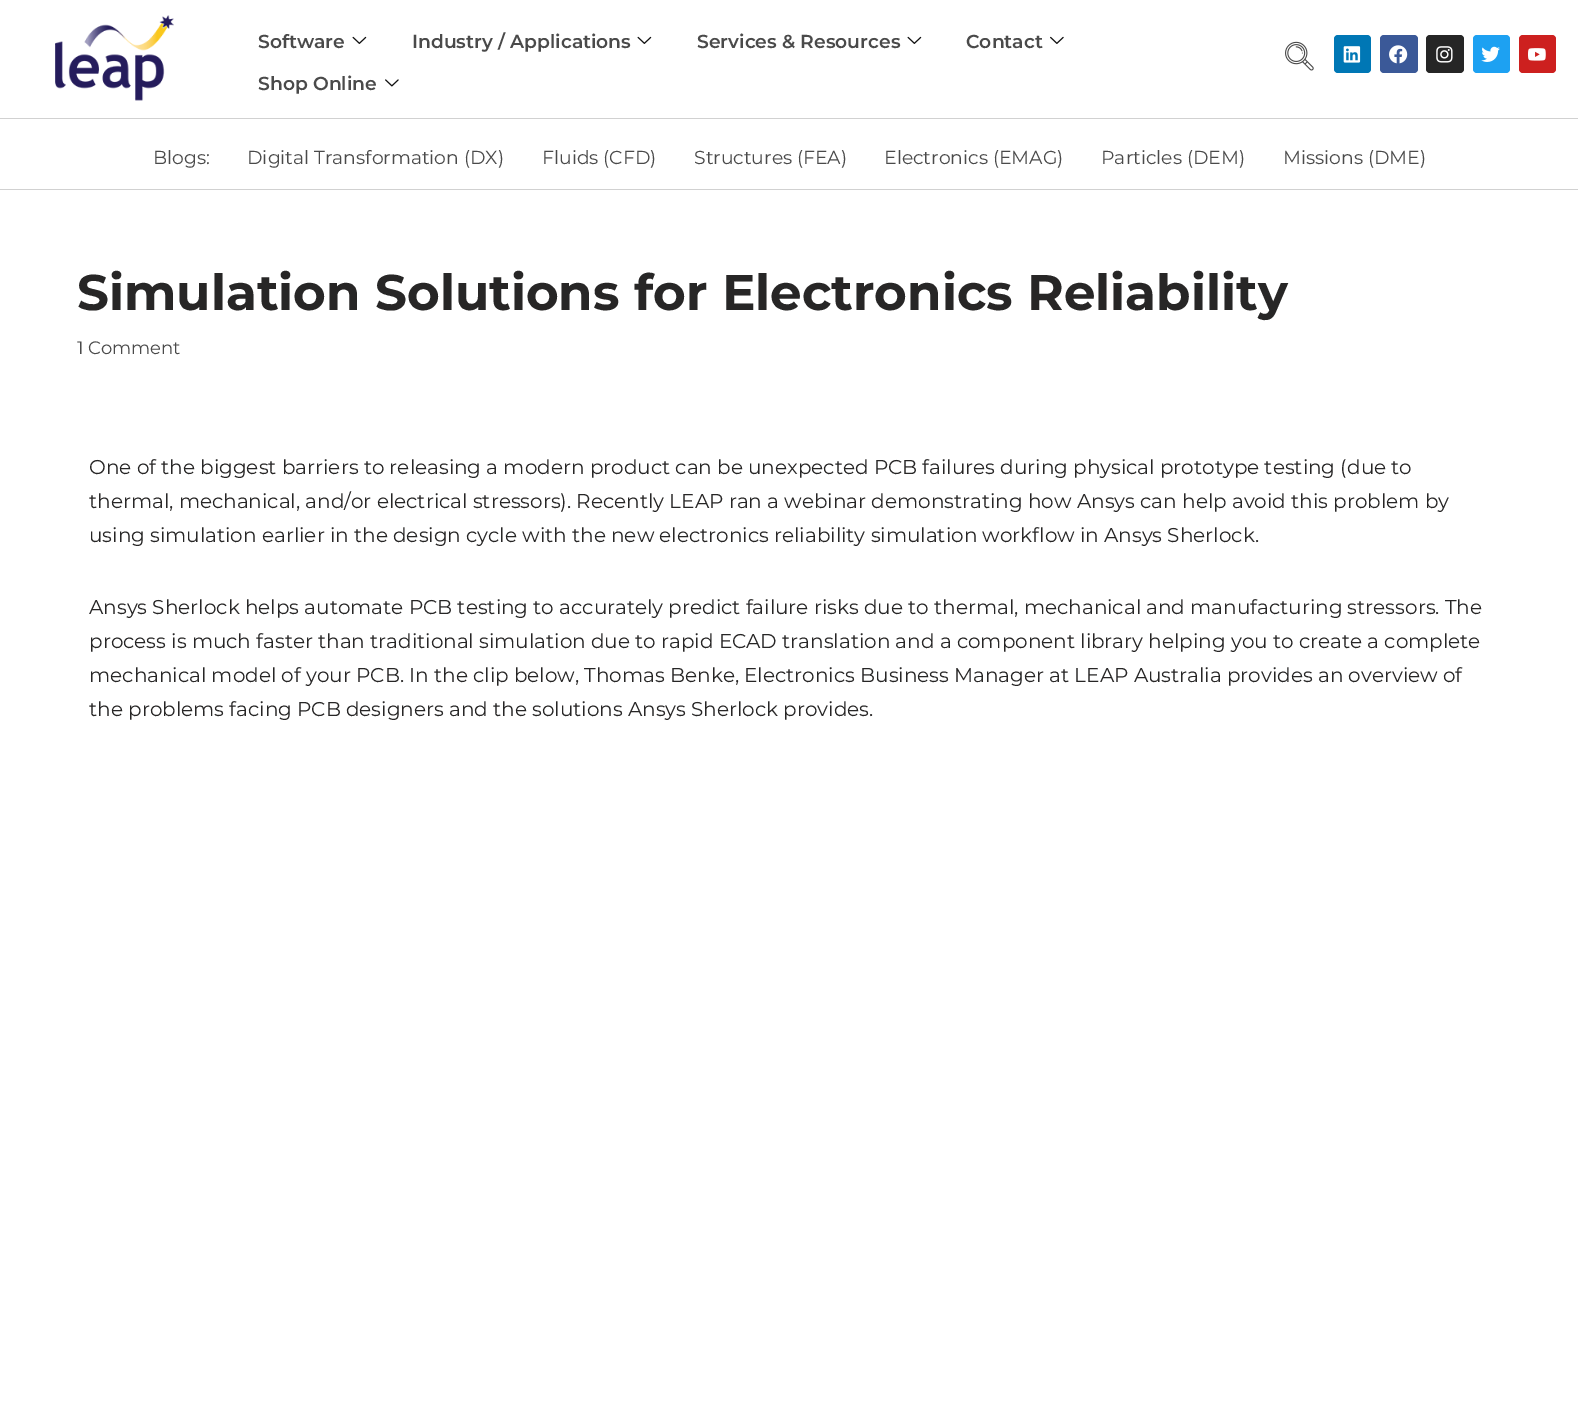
%!PS
<< /PageSize [1578 1405] >> setpagedevice
/f/fill load def
/C { dup -16 bitshift 255 div exch dup -8 bitshift 255 and 255 div exch 255 and 255 div setrgbcolor } def
/F { [ exch dup neg 0 0 3 -1 roll 0 0 ] selectfont } def
/T { moveto show } def
/R { rectfill } def
/Q { 5 dict begin { /r /h /w /y /x } { exch def } forall
  x r add y moveto x w add y 2 copy h add r arct x w add y h add x 1 index r arct
  x y h add x y r arct x y 2 copy exch w add exch r arct closepath end } def
/I { 5 dict begin { /h /w /y /x /name } { exch def } forall
  gsave x y translate w h scale
  w h 8 [w 0 0 h 0 0] name (r) file false 3 colorimage grestore end } def
0 1405 translate 1 -1 scale
4 setmiterlimit
16#FFFFFF C
0 0 1578 1405 R
16#D1D1D1 C
0 118 1578 1 R
(1.rgb) 55 15 119 86 I
/Montserrat-SemiBold 18.75 F
16#4A4A4A C
(Software) 258 48 T
(2.rgb) 352 36 15 8 I
(Industry / Applications) 412 48 T
(2.rgb) 637 36 15 8 I
(Services & Resources) 697 48 T
(2.rgb) 907 36 15 8 I
(Contact) 966 48 T
(3.rgb) 1050 36 14 8 I
(Shop Online) 258 90 T
(4.rgb) 385 79 14 8 I
(5.rgb) 1285 41 29 30 I
16#0077B5 C
1334 35 37 38 4 Q f
(6.rgb) 1343 46 18 17 I
16#3B5998 C
1380 35 38 38 4 Q f
(7.rgb) 1389 45 19 19 I
16#262626 C
1426 35 38 38 4 Q f
(8.rgb) 1436 46 17 17 I
16#1DA1F2 C
1473 35 37 38 4 Q f
(9.rgb) 1481 46 19 16 I
16#CD201F C
1519 35 37 38 4 Q f
(10.rgb) 1528 48 18 13 I
16#D1D1D1 C
0 189 1578 1 R
/Montserrat-Regular 18.75 F
16#4A4A4A C
(Blogs:) 153 164 T
(Digital Transformation \(DX\)) 247 164 T
(Fluids \(CFD\)) 542 164 T
(Structures \(FEA\)) 694 164 T
(Electronics \(EMAG\)) 884 164 T
(Particles \(DEM\)) 1101 164 T
(Missions \(DME\)) 1283 164 T
/Montserrat-Bold 50 F
16#272626 C
(Simulation Solutions for Electronics Reliability) 77 310 T
/Montserrat-Regular 18 F
16#4A4A4A C
(1 Comment) 77 354 T
/Montserrat-Regular 20 F
16#272626 C
(One of the biggest barriers to releasing a modern product can be unexpected PCB failures during physical prototype testing \(due to) 89 474 T
(thermal, mechanical, and/or electrical stressors\). Recently LEAP ran a webinar demonstrating how Ansys can help avoid this problem by) 89 508 T
(using simulation earlier in the design cycle with the new electronics reliability simulation workflow in Ansys Sherlock.) 89 542 T
(Ansys Sherlock helps automate PCB testing to accurately predict failure risks due to thermal, mechanical and manufacturing stressors. The) 89 614 T
(process is much faster than traditional simulation due to rapid ECAD translation and a component library helping you to create a complete) 89 648 T
(mechanical model of your PCB. In the clip below, Thomas Benke, Electronics Business Manager at LEAP Australia provides an overview of) 89 682 T
(the problems facing PCB designers and the solutions Ansys Sherlock provides.) 89 716 T
showpage
